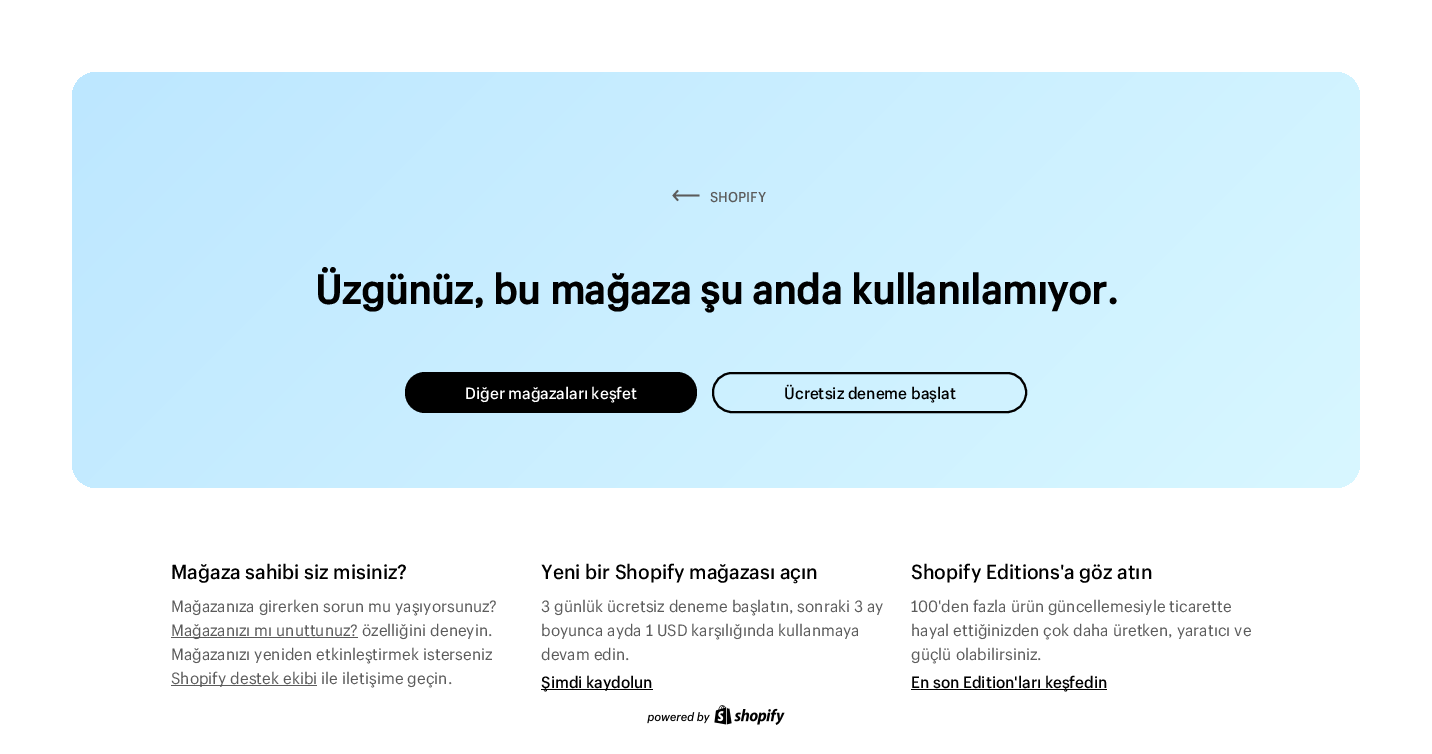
%!PS
<< /PageSize [1432 754] >> setpagedevice
/m/moveto load def
/l/rlineto load def
/f/fill load def
/s/stroke load def
/q/gsave load def
/Q_/grestore load def
/w/setlinewidth load def
/C { dup -16 bitshift 255 div exch dup -8 bitshift 255 and 255 div exch 255 and 255 div setrgbcolor } def
/F { [ exch dup neg 0 0 3 -1 roll 0 0 ] selectfont } def
/T { moveto show } def
/R { rectfill } def
/Q { 5 dict begin { /r /h /w /y /x } { exch def } forall
  x r add y moveto x w add y 2 copy h add r arct x w add y h add x 1 index r arct
  x y h add x y r arct x y 2 copy exch w add exch r arct closepath end } def
/I { 5 dict begin { /h /w /y /x /name } { exch def } forall
  gsave x y translate w h scale
  w h 8 [w 0 0 h 0 0] name (r) file false 3 colorimage grestore end } def
0 754 translate 1 -1 scale
4 setmiterlimit
16#FFFFFF C
0 0 1432 754 R
q 72 72 1288 416 25 Q clip newpath
<< /ShadingType 2 /ColorSpace /DeviceRGB /Coords [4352 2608 944 -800] /Extend [true true] /Function << /FunctionType 3 /Domain [0 1] /Functions [<< /FunctionType 2 /Domain [0 1] /C0 [.757 .914 1] /C1 [.957 .961 .965] /N 1 >> << /FunctionType 2 /Domain [0 1] /C0 [.957 .961 .965] /C1 [.882 .988 1] /N 1 >> << /FunctionType 2 /Domain [0 1] /C0 [.882 .988 1] /C1 [.741 .906 1] /N 1 >>] /Bounds [.33 .67] /Encode [0 1 0 1 0 1] >> >> shfill Q_
16#5B5B5B C
1.7 w
699.5 195.5 m -26 0 l 678 190.5 m -4.5 5 l 4.5 5 l s
/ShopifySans-Medium 14 F
(SHOPIFY) 710 202 T
/ShopifySans-Bold 40 F
16#000000 C
(Üzgünüz, bu mağaza şu anda kullanılamıyor.) 315 304 T
405 372 292 41 20 Q f
/ShopifySans-Medium 16 F
16#FFFFFF C
(Diğer mağazaları keşfet) 465 399 T
16#000000 C
2 w
713 373 313 39 19 Q s
(Ücretsiz deneme başlat) 784 399 T
/ShopifySans-Medium 20 F
(Mağaza sahibi siz misiniz?) 171 579 T
/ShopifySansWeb-Regular 16 F
16#5B5B5B C
(Mağazanıza girerken sorun mu yaşıyorsunuz?) 171 612 T
171 637 187 1 R
(Mağazanızı mı unuttunuz? özelliğini deneyin.) 171 636 T
(Mağazanızı yeniden etkinleştirmek isterseniz) 171 660 T
171 685 146 1 R
(Shopify destek ekibi ile iletişime geçin.) 171 684 T
/ShopifySans-Medium 20 F
16#000000 C
(Yeni bir Shopify mağazası açın) 541 579 T
/ShopifySansWeb-Regular 16 F
16#5B5B5B C
(3 günlük ücretsiz deneme başlatın, sonraki 3 ay) 541 612 T
(boyunca ayda 1 USD karşılığında kullanmaya) 541 636 T
(devam edin.) 541 660 T
16#000000 C
541 689 112 1 R
/ShopifySans-Medium 16 F
(Şimdi kaydolun) 541 688 T
/ShopifySans-Medium 20 F
(Shopify Editions'a göz atın) 911 579 T
/ShopifySansWeb-Regular 16 F
16#5B5B5B C
(100'den fazla ürün güncellemesiyle ticarette) 911 612 T
(hayal ettiğinizden çok daha üretken, yaratıcı ve) 911 636 T
(güçlü olabilirsiniz.) 911 660 T
16#000000 C
911 689 196 1 R
/ShopifySans-Medium 16 F
(En son Edition'ları keşfedin) 911 688 T
(1.rgb) 647 705 138 20 I
showpage
